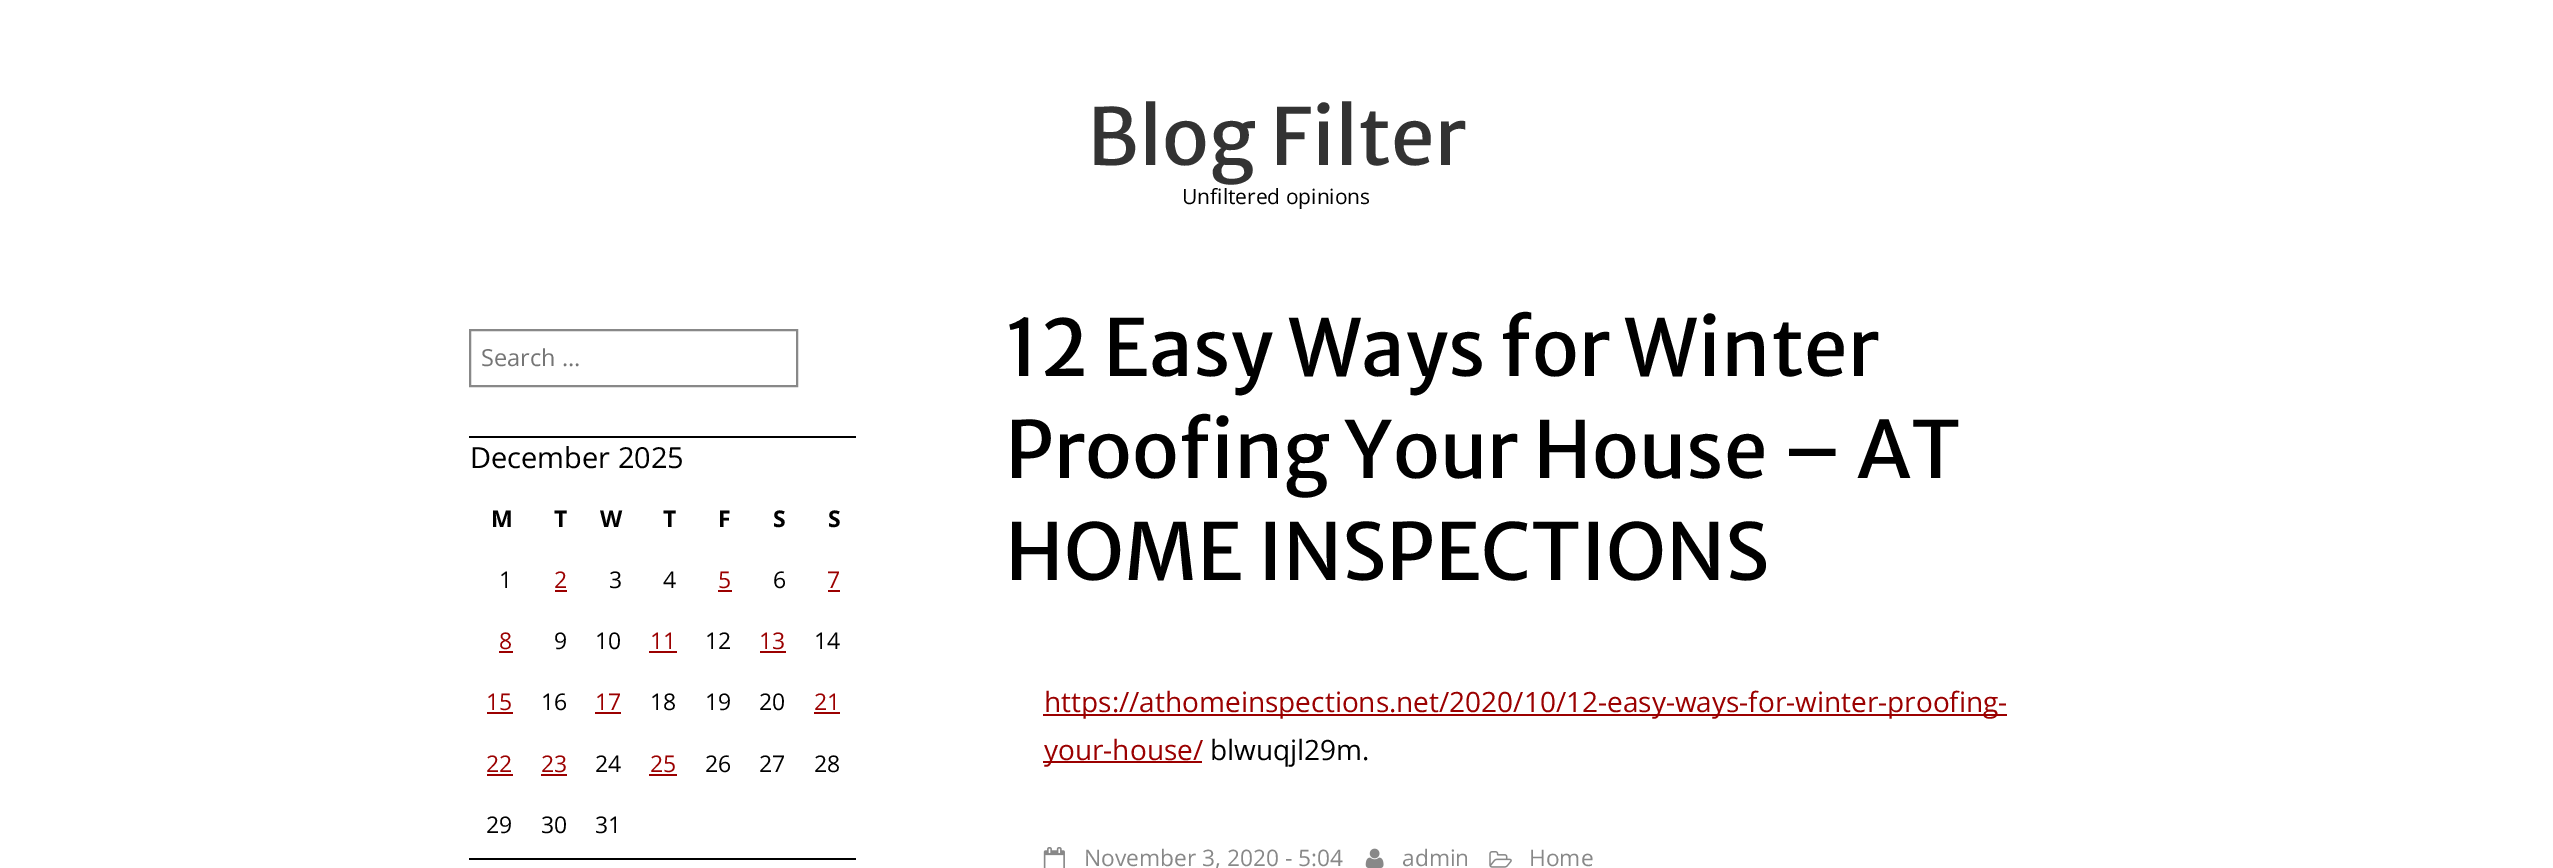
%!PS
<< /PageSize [2553 868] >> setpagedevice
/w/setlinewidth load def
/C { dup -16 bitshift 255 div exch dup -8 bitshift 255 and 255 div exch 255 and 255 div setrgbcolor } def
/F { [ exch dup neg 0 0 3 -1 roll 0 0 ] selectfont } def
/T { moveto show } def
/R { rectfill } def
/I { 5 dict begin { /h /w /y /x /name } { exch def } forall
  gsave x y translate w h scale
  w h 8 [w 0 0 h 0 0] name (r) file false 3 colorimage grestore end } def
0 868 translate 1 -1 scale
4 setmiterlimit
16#FFFFFF C
0 0 2553 868 R
/MerriweatherSans-Regular 78.4 F
16#333333 C
(Blog Filter) 1087 165 T
/OpenSans-Regular 21 F
16#000000 C
(Unfiltered opinions) 1182 204 T
16#888888 C
2 w
470 330 327 56 rectstroke
/OpenSans-Regular 23.5 F
16#757575 C
(Search …) 481 366 T
16#000000 C
469 436 387 2 R
469 858 387 2 R
/OpenSans-Regular 29 F
(December 2025) 470 468 T
/OpenSans-Bold 23 F
(M) 491 527 T
(T) 554 527 T
(W) 600 527 T
(T) 663 527 T
(F) 718 527 T
(S) 773 527 T
(S) 828 527 T
/OpenSans-Regular 23 F
(1) 499 588 T
16#9B0000 C
(2) 554 588 T
555 590 12 2 R
16#000000 C
(3) 609 588 T
(4) 663 588 T
16#9B0000 C
(5) 718 588 T
718 590 14 2 R
16#000000 C
(6) 773 588 T
16#9B0000 C
(7) 827 588 T
828 590 12 2 R
(8) 499 649 T
499 651 14 2 R
16#000000 C
(9) 554 649 T
(10) 595 649 T
16#9B0000 C
(11) 650 649 T
649 651 28 2 R
16#000000 C
(12) 705 649 T
16#9B0000 C
(13) 759 649 T
760 651 26 2 R
16#000000 C
(14) 814 649 T
16#9B0000 C
(15) 486 710 T
487 712 26 2 R
16#000000 C
(16) 541 710 T
16#9B0000 C
(17) 595 710 T
595 712 26 2 R
16#000000 C
(18) 650 710 T
(19) 705 710 T
(20) 759 710 T
16#9B0000 C
(21) 814 710 T
814 712 26 2 R
(22) 486 772 T
487 774 26 2 R
(23) 541 772 T
541 774 26 2 R
16#000000 C
(24) 595 772 T
16#9B0000 C
(25) 650 772 T
649 774 28 2 R
16#000000 C
(26) 705 772 T
(27) 759 772 T
(28) 814 772 T
(29) 486 833 T
(30) 541 833 T
(31) 595 833 T
/MerriweatherSans-Regular 78.4 F
(12 Easy Ways for Winter) 1005 376 T
(Proofing Your House – AT) 1005 478 T
(HOME INSPECTIONS) 1005 580 T
16#9B0000 C
1043 714 964 2 R
/OpenSans-Regular 28 F
(https://athomeinspections.net/2020/10/12-easy-ways-for-winter-proofing-) 1044 712 T
1043 761 159 2 R
(your-house/) 1044 760 T
16#000000 C
(blwuqjl29m.) 1210 760 T
(1.rgb) 1043 847 22 21 I
/OpenSans-Regular 22.75 F
16#888888 C
(November 3, 2020 - 5:04) 1084 866 T
(2.rgb) 1365 848 19 20 I
(admin) 1402 866 T
(3.rgb) 1489 851 23 17 I
(Home) 1529 866 T
showpage
